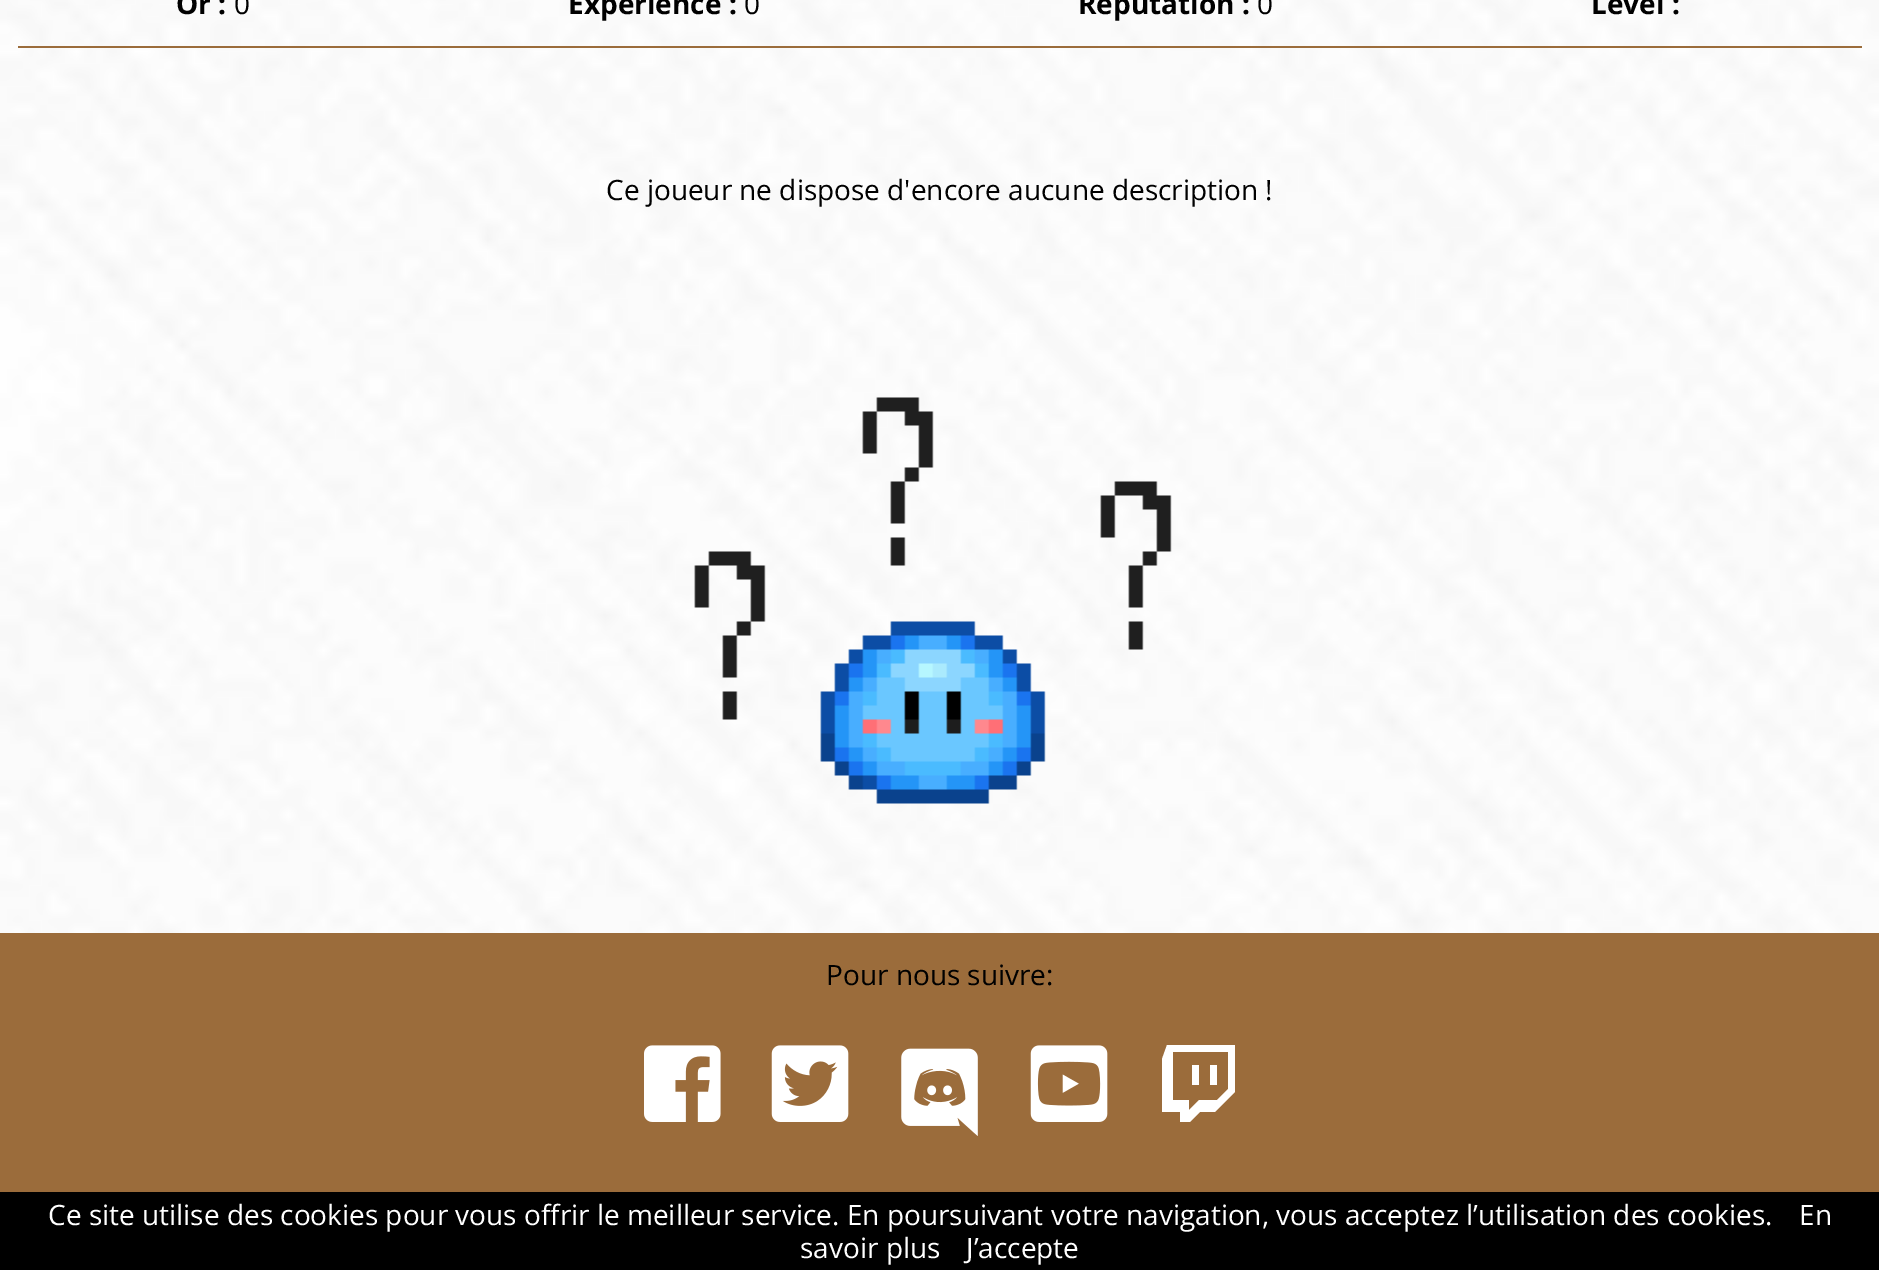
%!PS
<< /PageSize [1879 1270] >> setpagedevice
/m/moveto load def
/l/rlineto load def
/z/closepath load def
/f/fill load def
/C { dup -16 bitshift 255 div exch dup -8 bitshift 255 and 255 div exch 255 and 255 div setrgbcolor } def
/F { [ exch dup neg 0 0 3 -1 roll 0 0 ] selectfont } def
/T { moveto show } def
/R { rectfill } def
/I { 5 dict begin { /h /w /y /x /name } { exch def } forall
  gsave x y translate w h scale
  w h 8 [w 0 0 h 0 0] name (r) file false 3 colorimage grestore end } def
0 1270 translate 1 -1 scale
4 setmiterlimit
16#FFFFFF C
0 0 1879 1270 R
(1.rgb) 0 0 1879 933 I
16#9B6C3B C
18 46 1844 2 R
/OpenSans-Bold 28 F
16#000000 C
(Or :) 176 14 T
/OpenSans-Regular 28 F
(0) 234 14 T
/OpenSans-Bold 28 F
(Expérience :) 568 14 T
/OpenSans-Regular 28 F
(0) 744 14 T
/OpenSans-Bold 28 F
(Réputation :) 1078 14 T
/OpenSans-Regular 28 F
(0) 1257 14 T
/OpenSans-Bold 28 F
(Level :) 1591 14 T
/OpenSans-Regular 28 F
(Ce joueur ne dispose d'encore aucune description !) 606 200 T
(2.rgb) 694 397 478 407 I
16#9B6C3B C
0 933 1879 259 R
16#000000 C
(Pour nous suivre:) 826 985 T
(3.rgb) 644 1045 77 77 I
(4.rgb) 771 1045 78 77 I
(5.rgb) 901 1048 77 88 I
(6.rgb) 1030 1045 78 77 I
16#FFFFFF C
1167 1045 m -5 14 l 0 53 l 18 0 l 0 10 l 10 0 l 10 -10 l 15 0 l 20 -20 l 0 -47 l z 1228 1089 m -11 11 l -18 0 l -10 10 l 0 -10 l -16 0 l 0 -48 l 55 0 l z 1217 1065 m 0 20 l -7 0 l 0 -20 l z 1199 1065 m 0 20 l -7 0 l 0 -20 l z f
16#000000 C
0 1192 1879 78 R
16#FFFFFF C
(Ce site utilise des cookies pour vous offrir le meilleur service. En poursuivant votre navigation, vous acceptez l’utilisation des cookies.) 48 1225 T
(En) 1799 1225 T
(savoir plus) 800 1258 T
(J’accepte) 966 1258 T
showpage
